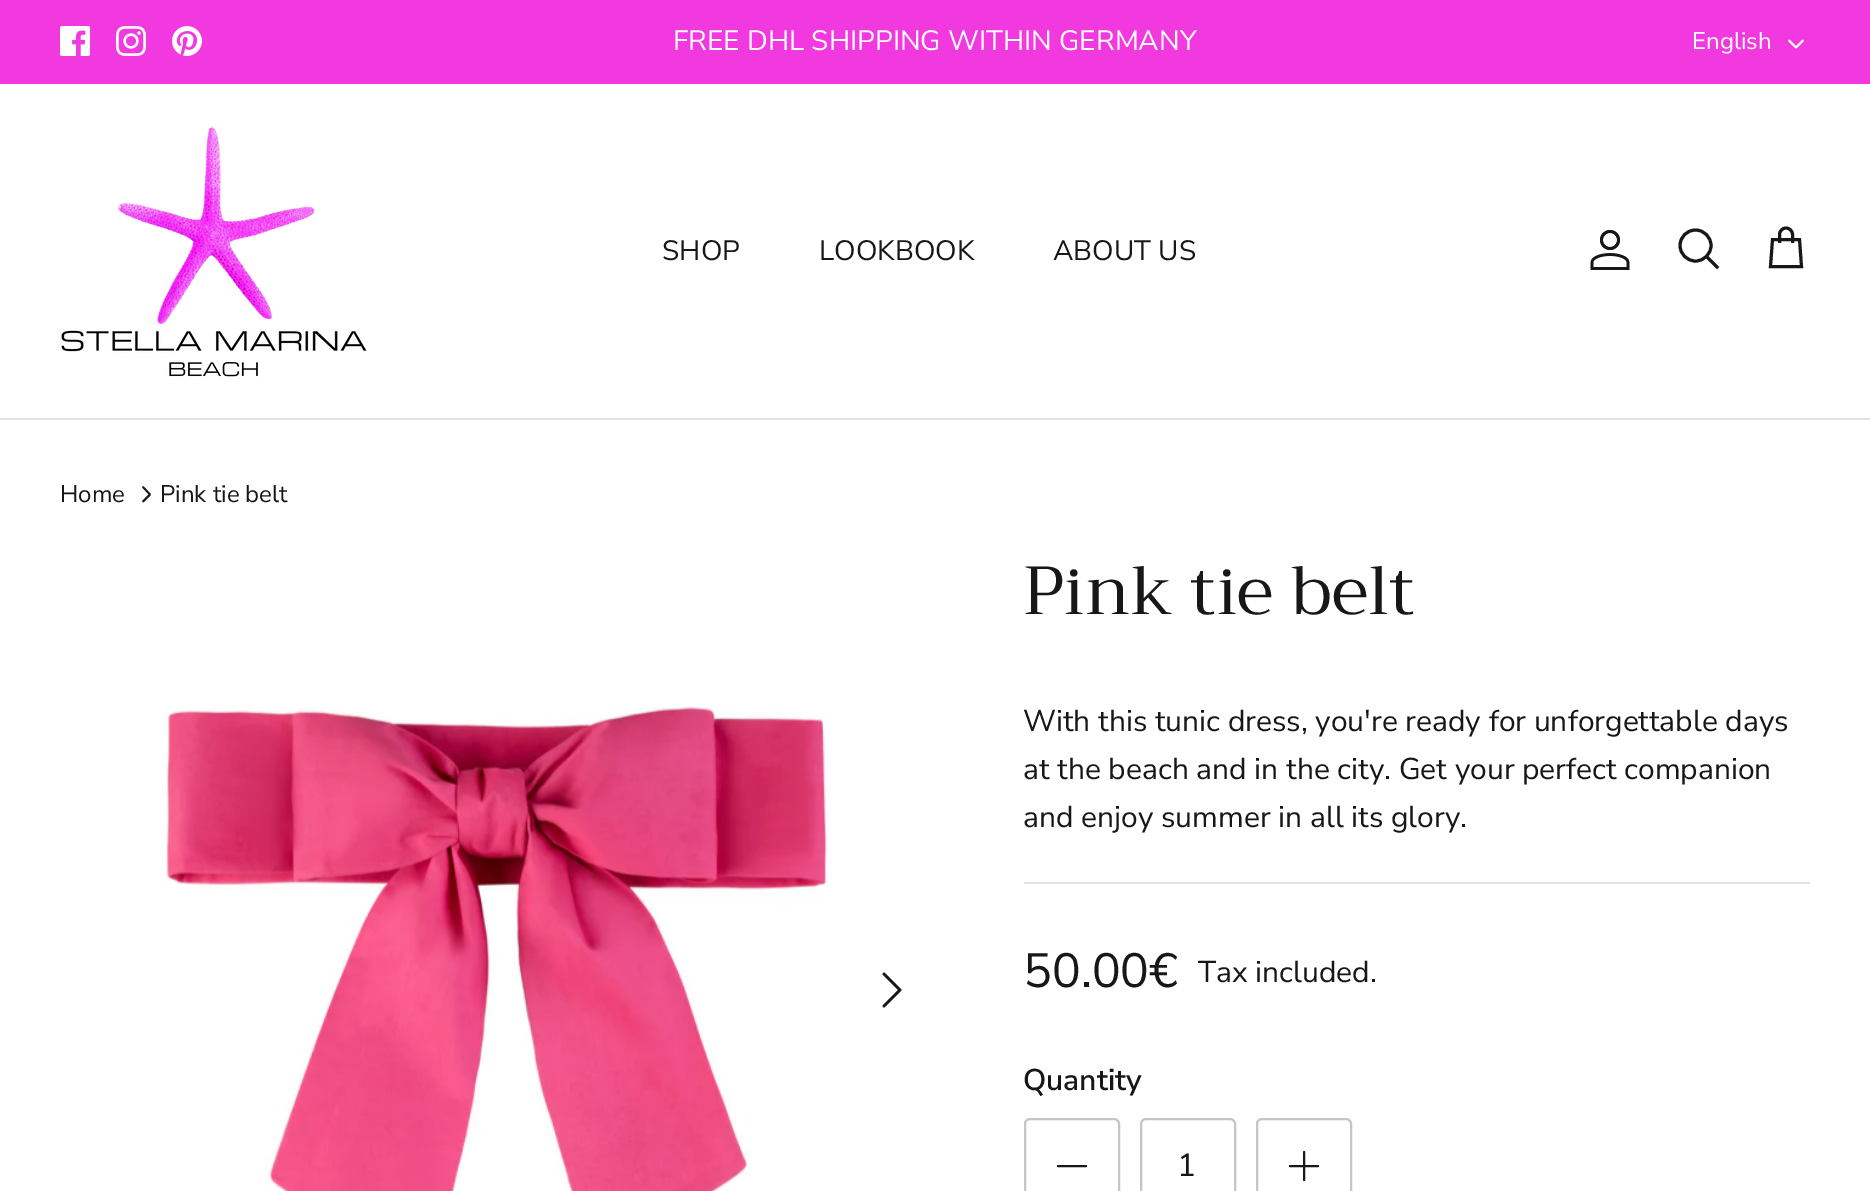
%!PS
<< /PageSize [1870 1191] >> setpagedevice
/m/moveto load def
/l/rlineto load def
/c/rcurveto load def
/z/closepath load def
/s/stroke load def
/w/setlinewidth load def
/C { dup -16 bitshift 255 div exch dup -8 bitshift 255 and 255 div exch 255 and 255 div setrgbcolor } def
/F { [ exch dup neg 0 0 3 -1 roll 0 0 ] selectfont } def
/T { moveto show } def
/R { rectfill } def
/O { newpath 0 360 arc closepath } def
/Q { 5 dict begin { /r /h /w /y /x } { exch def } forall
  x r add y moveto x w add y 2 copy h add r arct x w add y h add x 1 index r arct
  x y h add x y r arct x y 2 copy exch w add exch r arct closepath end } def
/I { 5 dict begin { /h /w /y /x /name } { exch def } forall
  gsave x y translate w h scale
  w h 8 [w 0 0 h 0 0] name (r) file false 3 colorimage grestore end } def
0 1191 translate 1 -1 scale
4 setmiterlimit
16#FFFFFF C
0 0 1870 1191 R
16#F238DF C
0 0 1870 84 R
(1.rgb) 60 26 30 30 I
(2.rgb) 116 26 30 30 I
(3.rgb) 172 26 30 30 I
/NunitoSans-Regular 28 F
16#FFFFFF C
(FREE DHL SHIPPING WITHIN GERMANY) 673 50 T
/NunitoSans-Regular 24 F
(English) 1692 49 T
1.8 w
1 setlinecap
1 setlinejoin
1789 40.5 m 7 7 l 7 -7 l s
16#DFE3E8 C
0 418 1870 2 R
(4.rgb) 61 127 306 250 I
/NunitoSans-Regular 28 F
16#171717 C
(SHOP) 662 260 T
(LOOKBOOK) 819 260 T
(ABOUT US) 1053 260 T
(5.rgb) 1590 230 40 40 I
3 w
0 setlinecap
0 setlinejoin
1695.5 245.5 15.5 O s
2 setlinecap
1708 258 m 9 9 l s
0 setlinecap
1792.5 243 m 0 -8.5 l 0 -3.5 -3 -6.5 -6.5 -6.5 c -3.5 0 -6.5 3 -6.5 6.5 c 0 8.5 l 1772.5 239.5 m 27 0 l 2 27 l -31 0 l z s
/NunitoSans-Regular 24 F
(Home) 60 502 T
1.8 w
1 setlinecap
1 setlinejoin
143 501.5 m 7 -7 l -7 -7.5 l s
(Pink tie belt) 160 502 T
(6.rgb) 165 706 664 485 I
2.7 w
884 1006 m 16 -16 l -16 -16 l s
/Trirong-Regular 68 F
(Pink tie belt) 1023 614 T
/NunitoSans-Regular 30 F
(With this tunic dress, you're ready for unforgettable days) 1023 731 T
(at the beach and in the city. Get your perfect companion) 1023 779 T
(and enjoy summer in all its glory.) 1023 827 T
16#E2E2E2 C
1024 882 786 2 R
/NunitoSans-Regular 48 F
16#171717 C
(50.00€) 1023 987 T
/NunitoSans-Regular 30 F
(Tax included.) 1198 982 T
/NunitoSans-SemiBold 30 F
(Quantity) 1023 1090 T
16#C5C5C5 C
2 w
0 setlinecap
0 setlinejoin
1025 1119 94 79 5 Q s
16#171717 C
1 setlinecap
1 setlinejoin
1058 1166 m 28 0 l s
16#C5C5C5 C
0 setlinecap
0 setlinejoin
1141 1119 94 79 5 Q s
/NunitoSans-Regular 32 F
16#171717 C
(1) 1177 1176 T
16#C5C5C5 C
1257 1119 94 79 5 Q s
16#171717 C
1 setlinecap
1 setlinejoin
1304 1152 m 0 28 l 1290 1166 m 28 0 l s
showpage
